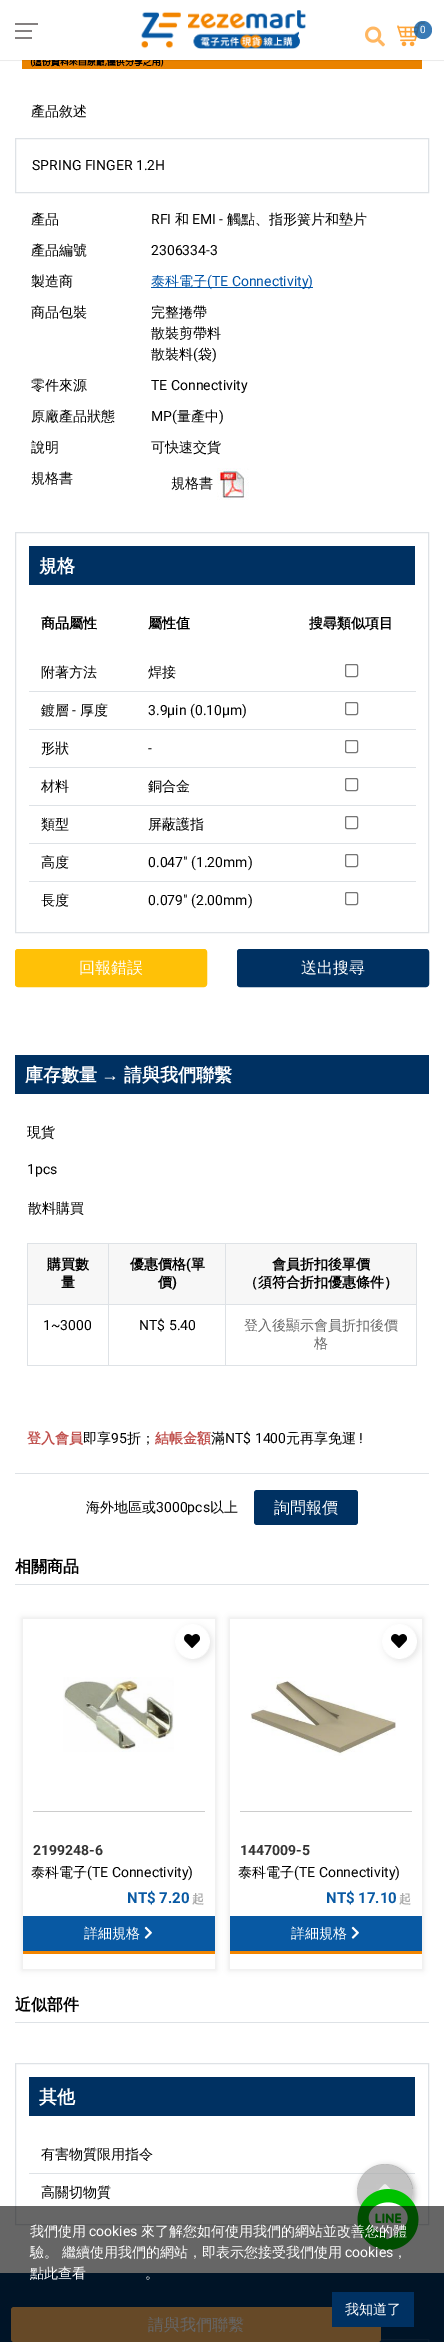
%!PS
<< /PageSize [444 2342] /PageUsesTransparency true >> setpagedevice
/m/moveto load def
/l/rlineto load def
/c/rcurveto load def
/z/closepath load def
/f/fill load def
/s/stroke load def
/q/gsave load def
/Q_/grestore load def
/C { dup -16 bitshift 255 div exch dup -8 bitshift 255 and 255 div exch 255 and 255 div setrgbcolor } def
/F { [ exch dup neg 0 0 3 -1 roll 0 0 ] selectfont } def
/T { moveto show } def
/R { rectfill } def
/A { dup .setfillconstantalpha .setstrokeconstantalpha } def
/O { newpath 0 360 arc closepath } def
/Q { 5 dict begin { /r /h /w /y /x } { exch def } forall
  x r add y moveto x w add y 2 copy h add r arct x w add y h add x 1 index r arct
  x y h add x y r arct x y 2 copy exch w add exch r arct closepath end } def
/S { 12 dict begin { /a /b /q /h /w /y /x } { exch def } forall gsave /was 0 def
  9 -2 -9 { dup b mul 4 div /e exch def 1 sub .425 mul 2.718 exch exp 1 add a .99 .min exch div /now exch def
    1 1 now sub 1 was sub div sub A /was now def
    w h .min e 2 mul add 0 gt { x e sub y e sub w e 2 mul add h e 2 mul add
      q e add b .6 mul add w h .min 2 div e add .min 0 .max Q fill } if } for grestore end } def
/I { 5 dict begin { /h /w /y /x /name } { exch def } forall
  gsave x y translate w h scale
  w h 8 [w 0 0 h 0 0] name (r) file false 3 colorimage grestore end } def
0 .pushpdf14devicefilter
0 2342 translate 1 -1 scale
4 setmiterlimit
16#FFFFFF C
0 0 444 2342 R
(4.rgb) 22 60 400 9 I
16#000000 C
0 0 444 60 0 .5 .3 S
16#FFFFFF C
0 0 444 60 R
16#848080 C
15 30 17 2 R
15 23 23 2 R
15 37 17 2 R
(1.rgb) 141 10 165 39 I
(2.rgb) 365 26 20 21 I
(3.rgb) 397 22 28 25 I
0.8 A
16#0859A3 C
423 30 9 O f
/Roboto-Regular 10 F
1 A
16#FFFFFF C
(0) 420 33 T
/WenQuanYiZenHei-Medium 14 F
16#000000 C
(產品敘述) 31 116 T
16#DEE2E6 C
15.5 138.5 413 54 rectstroke
/Roboto-Regular 14 F
16#000000 C
(SPRING FINGER 1.2H) 32 170 T
/WenQuanYiZenHei-Medium 14 F
(產品) 31 224 T
/Roboto-Regular 14 F
(RFI) 151 224 T
/WenQuanYiZenHei-Medium 14 F
(和) 175 224 T
/Roboto-Regular 14 F
(EMI -) 192 224 T
/WenQuanYiZenHei-Medium 14 F
(觸點、指形簧片和墊片) 227 224 T
(產品編號) 31 255 T
/Roboto-Regular 14 F
(2306334-3) 151 255 T
/WenQuanYiZenHei-Medium 14 F
(製造商) 31 286 T
16#0054A8 C
151 287 162 1 R
(泰科電子) 151 286 T
/Roboto-Regular 14 F
(\(TE Connectivity\)) 207 286 T
/WenQuanYiZenHei-Medium 14 F
16#000000 C
(商品包裝) 31 317 T
(完整捲帶) 151 317 T
(散裝剪帶料) 151 338 T
(散裝料) 151 359 T
/Roboto-Regular 14 F
(\() 193 359 T
/WenQuanYiZenHei-Medium 14 F
(袋) 198 359 T
/Roboto-Regular 14 F
(\)) 212 359 T
/WenQuanYiZenHei-Medium 14 F
(零件來源) 31 390 T
/Roboto-Regular 14 F
(TE Connectivity) 151 390 T
/WenQuanYiZenHei-Medium 14 F
(原廠產品狀態) 31 421 T
/Roboto-Regular 14 F
(MP\() 151 421 T
/WenQuanYiZenHei-Medium 14 F
(量產中) 177 421 T
/Roboto-Regular 14 F
(\)) 219 421 T
/WenQuanYiZenHei-Medium 14 F
(說明) 31 452 T
(可快速交貨) 151 452 T
(規格書) 31 483 T
(規格書) 171 488 T
(5.rgb) 217 468 32 32 I
16#DEE2E6 C
15.5 532.5 413 400 rectstroke
16#003162 C
29 546 386 39 R
/WenQuanYiZenHei-Bold 18 F
16#FFFFFF C
(規格) 39 572 T
/WenQuanYiZenHei-Bold 14 F
16#000000 C
(商品屬性) 41 628 T
(屬性值) 148 628 T
(搜尋類似項目) 309 628 T
16#DEE2E6 C
29 691 387 1 R
16#767676 C
345.5 664.5 12 12 1.5 Q s
/WenQuanYiZenHei-Medium 14 F
16#000000 C
(附著方法) 41 677 T
(焊接) 148 677 T
16#DEE2E6 C
29 729 387 1 R
16#767676 C
345.5 702.5 12 12 1.5 Q s
16#000000 C
(鍍層) 41 715 T
/Roboto-Regular 14 F
(-) 72 715 T
/WenQuanYiZenHei-Medium 14 F
(厚度) 80 715 T
/Roboto-Regular 14 F
(3.9µin \(0.10µm\)) 148 715 T
16#DEE2E6 C
29 767 387 1 R
16#767676 C
345.5 740.5 12 12 1.5 Q s
/WenQuanYiZenHei-Medium 14 F
16#000000 C
(形狀) 41 753 T
/Roboto-Regular 14 F
(-) 148 753 T
16#DEE2E6 C
29 805 387 1 R
16#767676 C
345.5 778.5 12 12 1.5 Q s
/WenQuanYiZenHei-Medium 14 F
16#000000 C
(材料) 41 791 T
(銅合金) 148 791 T
16#DEE2E6 C
29 843 387 1 R
16#767676 C
345.5 816.5 12 12 1.5 Q s
16#000000 C
(類型) 41 829 T
(屏蔽護指) 148 829 T
16#DEE2E6 C
29 881 387 1 R
16#767676 C
345.5 854.5 12 12 1.5 Q s
16#000000 C
(高度) 41 867 T
/Roboto-Regular 14 F
(0.047" \(1.20mm\)) 148 867 T
/WenQuanYiZenHei-Medium 14 F
(長度) 41 905 T
/Roboto-Regular 14 F
(0.079" \(2.00mm\)) 148 905 T
16#767676 C
345.5 892.5 12 12 1.5 Q s
16#FFC107 C
15.5 949.5 191 37 2.5 Q q f Q_
s
/WenQuanYiZenHei-Medium 16 F
16#FFFFFF C
(回報錯誤) 79 973 T
16#003162 C
237.5 949.5 191 37 2.5 Q q f Q_
s
16#FFFFFF C
(送出搜尋) 301 973 T
16#003162 C
15 1055 414 39 R
/WenQuanYiZenHei-Bold 18 F
16#FFFFFF C
(庫存數量) 25 1081 T
/LiberationSans-Bold 18 F
(→) 101 1081 T
/WenQuanYiZenHei-Bold 18 F
(請與我們聯繫) 124 1081 T
16#DEE2E6 C
15 1473 414 1 R
/WenQuanYiZenHei-Medium 14 F
16#000000 C
(現貨) 27 1137 T
/Roboto-Regular 14 F
(1pcs) 27 1174 T
/WenQuanYiZenHei-Medium 14 F
(散料購買) 28 1213 T
16#DEE2E6 C
27 1243 390 1 R
416 1243 1 123 R
27 1365 390 1 R
27 1243 1 123 R
16#F7F7F7 C
28 1244 388 60 R
/WenQuanYiZenHei-Bold 14 F
16#000000 C
(購買數) 47 1269 T
(量) 61 1287 T
16#DEE2E6 C
225 1304 192 1 R
225 1304 1 62 R
108 1304 118 1 R
108 1304 1 62 R
27 1304 82 1 R
108 1243 1 62 R
16#000000 C
(優惠價格) 130 1269 T
/Roboto-Bold 14 F
(\() 186 1269 T
/WenQuanYiZenHei-Bold 14 F
(單) 191 1269 T
(價) 158 1287 T
/Roboto-Bold 14 F
(\)) 172 1287 T
16#DEE2E6 C
225 1243 1 62 R
/WenQuanYiZenHei-Bold 14 F
16#000000 C
(會員折扣後單價) 272 1269 T
(（須符合折扣優惠條件）) 244 1287 T
/Roboto-Regular 14 F
(1~3000) 43 1330 T
(NT$ 5.40) 139 1330 T
/WenQuanYiZenHei-Medium 14 F
16#666666 C
(登入後顯示會員折扣後價) 244 1330 T
(格) 314 1348 T
/WenQuanYiZenHei-Bold 14 F
16#C0504D C
(登入會員) 27 1443 T
/WenQuanYiZenHei-Medium 14 F
16#000000 C
(即享) 83 1443 T
/Roboto-Regular 14 F
(95) 111 1443 T
/WenQuanYiZenHei-Medium 14 F
(折；) 127 1443 T
/WenQuanYiZenHei-Bold 14 F
16#C0504D C
(結帳金額) 155 1443 T
/WenQuanYiZenHei-Medium 14 F
16#000000 C
(滿) 211 1443 T
/Roboto-Regular 14 F
(NT$ 1400) 225 1443 T
/WenQuanYiZenHei-Medium 14 F
(元再享免運) 286 1443 T
/Roboto-Regular 14 F
(!) 359 1443 T
16#003162 C
0 2273 444 69 R
16#1A4672 C
15.5 2339.5 413 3 rectstroke
16#FFB762 C
11 2307 370 35 3 Q f
/WenQuanYiZenHei-Medium 16 F
16#FFFFFF C
(請與我們聯繫) 148 2330 T
/WenQuanYiZenHei-Medium 14 F
16#000000 C
(海外地區或) 86 1512 T
/Roboto-Regular 14 F
(3000pcs) 156 1512 T
/WenQuanYiZenHei-Medium 14 F
(以上) 210 1512 T
16#003162 C
254 1490 104 35 3 Q f
/WenQuanYiZenHei-Medium 16 F
16#FFFFFF C
(詢問報價) 274 1513 T
16#DEE2E6 C
15 1584 414 1 R
/WenQuanYiZenHei-Bold 16 F
16#000000 C
(相關商品) 15 1572 T
q
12 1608 m 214 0 l 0 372 l -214 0 l z 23 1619 m 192 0 l 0 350 l -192 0 l z eoclip newpath
22 1618 194 352 0 3 .1 S
Q_
q
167 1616 m 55 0 l 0 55 l -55 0 l z 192.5 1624 m 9.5 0 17.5 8 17.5 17.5 c 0 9.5 -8 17.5 -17.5 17.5 c -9.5 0 -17.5 -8 -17.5 -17.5 c 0 -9.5 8 -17.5 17.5 -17.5 c z eoclip newpath
177 1626 35 35 17.5 3 .1 S
Q_
0.8 A
16#FFFFFF C
192.5 1641.5 17.5 O f
1 A
(6.rgb) 184 1634 16 14 I
(7.rgb) 63 1677 111 75 I
16#CCCCCC C
33 1811 172 1 R
/Roboto-Bold 14 F
16#333333 C
(2199248-6) 33 1855 T
/WenQuanYiZenHei-Medium 14 F
16#000000 C
(泰科電子) 31 1877 T
/Roboto-Regular 14 F
(\(TE Connectivity\)) 87 1877 T
/Roboto-Bold 15 F
16#0859A3 C
(NT$ 7.20) 127 1903 T
/WenQuanYiZenHei-Bold 12 F
16#AAAAAA C
(起) 192 1903 T
16#0859A3 C
23 1916 192 35 R
16#F28500 C
23 1951 192 3 R
/WenQuanYiZenHei-Medium 14 F
16#FFFFFF C
(詳細規格) 84 1938 T
(8.rgb) 144 1926 8 13 I
q
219 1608 m 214 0 l 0 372 l -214 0 l z 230 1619 m 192 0 l 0 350 l -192 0 l z eoclip newpath
16#000000 C
229 1618 194 352 0 3 .1 S
Q_
q
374 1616 m 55 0 l 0 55 l -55 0 l z 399.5 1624 m 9.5 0 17.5 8 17.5 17.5 c 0 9.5 -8 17.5 -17.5 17.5 c -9.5 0 -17.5 -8 -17.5 -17.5 c 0 -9.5 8 -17.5 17.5 -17.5 c z eoclip newpath
16#000000 C
384 1626 35 35 17.5 3 .1 S
Q_
0.8 A
399.5 1641.5 17.5 O f
1 A
(6.rgb) 391 1634 16 14 I
(9.rgb) 250 1677 146 83 I
16#CCCCCC C
240 1811 172 1 R
/Roboto-Bold 14 F
16#333333 C
(1447009-5) 240 1855 T
/WenQuanYiZenHei-Medium 14 F
16#000000 C
(泰科電子) 238 1877 T
/Roboto-Regular 14 F
(\(TE Connectivity\)) 294 1877 T
/Roboto-Bold 15 F
16#0859A3 C
(NT$ 17.10) 326 1903 T
/WenQuanYiZenHei-Bold 12 F
16#AAAAAA C
(起) 399 1903 T
16#0859A3 C
230 1916 192 35 R
16#F28500 C
230 1951 192 3 R
/WenQuanYiZenHei-Medium 14 F
16#FFFFFF C
(詳細規格) 291 1938 T
(8.rgb) 351 1926 8 13 I
16#DEE2E6 C
15 2022 414 1 R
/WenQuanYiZenHei-Bold 16 F
16#000000 C
(近似部件) 15 2010 T
16#DEE2E6 C
15.5 2063.5 413 161 rectstroke
16#003162 C
29 2077 386 39 R
/WenQuanYiZenHei-Bold 18 F
16#FFFFFF C
(其他) 39 2103 T
16#DEE2E6 C
29 2173 386 1 R
/WenQuanYiZenHei-Medium 14 F
16#000000 C
(有害物質限用指令) 41 2159 T
(高關切物質) 41 2197 T
q
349 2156 m 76 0 l 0 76 l -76 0 l z 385 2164 m 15.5 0 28 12.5 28 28 c 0 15.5 -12.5 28 -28 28 c -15.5 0 -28 -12.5 -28 -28 c 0 -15.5 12.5 -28 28 -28 c z eoclip newpath
359 2166 56 56 28 3 .28 S
Q_
0.7 A
16#AAAAAA C
385 2192 28 O f
1 A
(10.rgb) 376 2184 16 8 I
(11.rgb) 357 2189 62 61 I
0.6 A
16#000000 C
0 2206 444 136 R
1 A
16#FFFFFF C
(我們使用) 30 2236 T
/Roboto-Regular 14 F
(cookies) 89 2236 T
/WenQuanYiZenHei-Medium 14 F
(來了解您如何使用我們的網站並改善您的體) 141 2236 T
(驗。 繼續使用我們的網站，即表示您接受我們使用) 30 2257 T
/Roboto-Regular 14 F
(cookies) 345 2257 T
/WenQuanYiZenHei-Medium 14 F
(，) 393 2257 T
(點此查看) 30 2278 T
(。) 145 2278 T
16#003162 C
332 2292 82 35 R
16#FFFFFF C
(我知道了) 345 2314 T
.poppdf14devicefilter showpage
